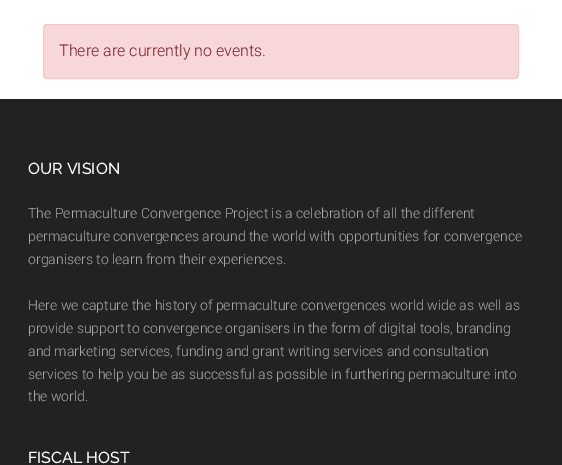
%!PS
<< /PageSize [562 465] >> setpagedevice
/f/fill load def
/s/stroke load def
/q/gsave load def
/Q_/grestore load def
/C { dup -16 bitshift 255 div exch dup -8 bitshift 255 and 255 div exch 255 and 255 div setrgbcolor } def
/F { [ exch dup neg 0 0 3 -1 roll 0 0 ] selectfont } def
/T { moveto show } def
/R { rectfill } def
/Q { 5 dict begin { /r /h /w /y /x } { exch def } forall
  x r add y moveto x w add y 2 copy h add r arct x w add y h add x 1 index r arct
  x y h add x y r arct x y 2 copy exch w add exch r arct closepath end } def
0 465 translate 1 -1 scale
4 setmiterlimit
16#FFFFFF C
0 0 562 465 R
16#F8D7DA C
43.5 24.5 475 54 3.5 Q q f Q_
16#F5C6CB C
s
/Roboto-Light 16 F
16#721C24 C
(There are currently no events.) 59 56 T
16#222222 C
0 99 562 366 R
/Raleway-Medium 16 F
16#FFFFFF C
(OUR VISION) 28 174 T
/Roboto-Light 14 F
16#AAAAAA C
(The Permaculture Convergence Project is a celebration of all the different) 28 218 T
(permaculture convergences around the world with opportunities for convergence) 28 241 T
(organisers to learn from their experiences.) 28 264 T
(Here we capture the history of permaculture convergences world wide as well as) 28 310 T
(provide support to convergence organisers in the form of digital tools, branding) 28 333 T
(and marketing services, funding and grant writing services and consultation) 28 356 T
(services to help you be as successful as possible in furthering permaculture into) 28 379 T
(the world.) 28 401 T
/Raleway-Medium 16 F
16#FFFFFF C
(FISCAL HOST) 28 463 T
showpage
